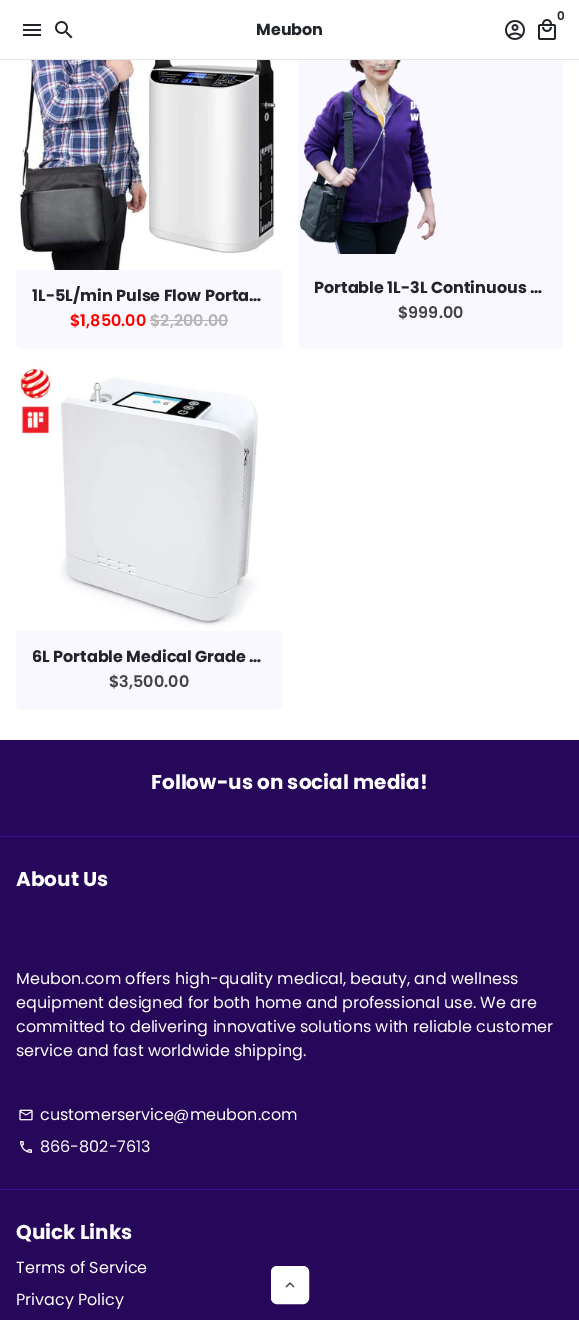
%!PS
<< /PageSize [579 1320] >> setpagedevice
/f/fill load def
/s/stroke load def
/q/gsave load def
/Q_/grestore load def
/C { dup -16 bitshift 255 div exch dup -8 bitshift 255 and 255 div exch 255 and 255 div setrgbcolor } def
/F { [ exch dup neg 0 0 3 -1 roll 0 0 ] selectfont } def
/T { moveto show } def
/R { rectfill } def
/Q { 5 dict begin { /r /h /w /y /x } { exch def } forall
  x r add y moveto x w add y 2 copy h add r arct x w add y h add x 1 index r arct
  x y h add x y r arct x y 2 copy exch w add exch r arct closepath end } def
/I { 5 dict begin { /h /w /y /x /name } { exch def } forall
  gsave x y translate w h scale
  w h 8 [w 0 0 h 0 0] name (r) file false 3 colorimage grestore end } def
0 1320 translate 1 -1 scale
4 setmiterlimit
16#FFFFFF C
0 0 579 1320 R
16#FAF8FF C
16 4 266 345 6 Q f
298 4 265 345 6 Q f
16#FFFFFF C
16 4 547 55 R
16#E5E5E5 C
0 59 579 1 R
/Poppins-SemiBold 12 F
16#212529 C
(0) 557 20 T
(1.rgb) 538 19 18 21 I
(2.rgb) 505 20 20 20 I
(3.rgb) 23 24 18 12 I
(4.rgb) 55 21 18 18 I
/Poppins-Bold 16 F
(Meubon) 256 35 T
(5.rgb) 16 60 266 210 I
q
32 286 234 19 rectclip
(1L-5L/min Pulse Flow Porta…) 32 301 T
Q_
/Poppins-SemiBold 16 F
16#FF0000 C
($1,850.00) 70 326 T
16#B4B4B4 C
($2,200.00) 150 326 T
150 320 78 1 R
(6.rgb) 299 60 138 194 I
/Poppins-Bold 16 F
16#212529 C
(Portable 1L-3L Continuous …) 314 293 T
/Poppins-SemiBold 16 F
16#444444 C
($999.00) 398 318 T
16#FAF8FF C
16 365 266 345 6 Q f
(7.rgb) 16 365 266 266 I
/Poppins-Bold 16 F
16#212529 C
(6L Portable Medical Grade …) 32 662 T
/Poppins-SemiBold 16 F
16#444444 C
($3,500.00) 109 687 T
16#260759 C
0 740 579 580 R
16#3E0E8F C
0 836 579 1 R
/Poppins-Bold 20 F
16#FFFFFF C
(Follow-us on social media!) 151 789 T
(About Us) 16 886 T
/Poppins-Regular 16 F
(Meubon.com offers high-quality medical, beauty, and wellness) 16 984 T
(equipment designed for both home and professional use. We are) 16 1008 T
(committed to delivering innovative solutions with reliable customer) 16 1032 T
(service and fast worldwide shipping.) 16 1056 T
(8.rgb) 19 1109 14 12 I
(customerservice@meubon.com) 40 1120 T
(9.rgb) 20 1141 12 12 I
(866-802-7613) 40 1152 T
16#3E0E8F C
0 1189 579 1 R
/Poppins-Bold 20 F
16#FFFFFF C
(Quick Links) 16 1239 T
/Poppins-Regular 16 F
(Terms of Service) 16 1273 T
(Privacy Policy) 16 1305 T
271.5 1266.5 37 37 5.5 Q q f Q_
s
(10.rgb) 285 1282 10 6 I
showpage
